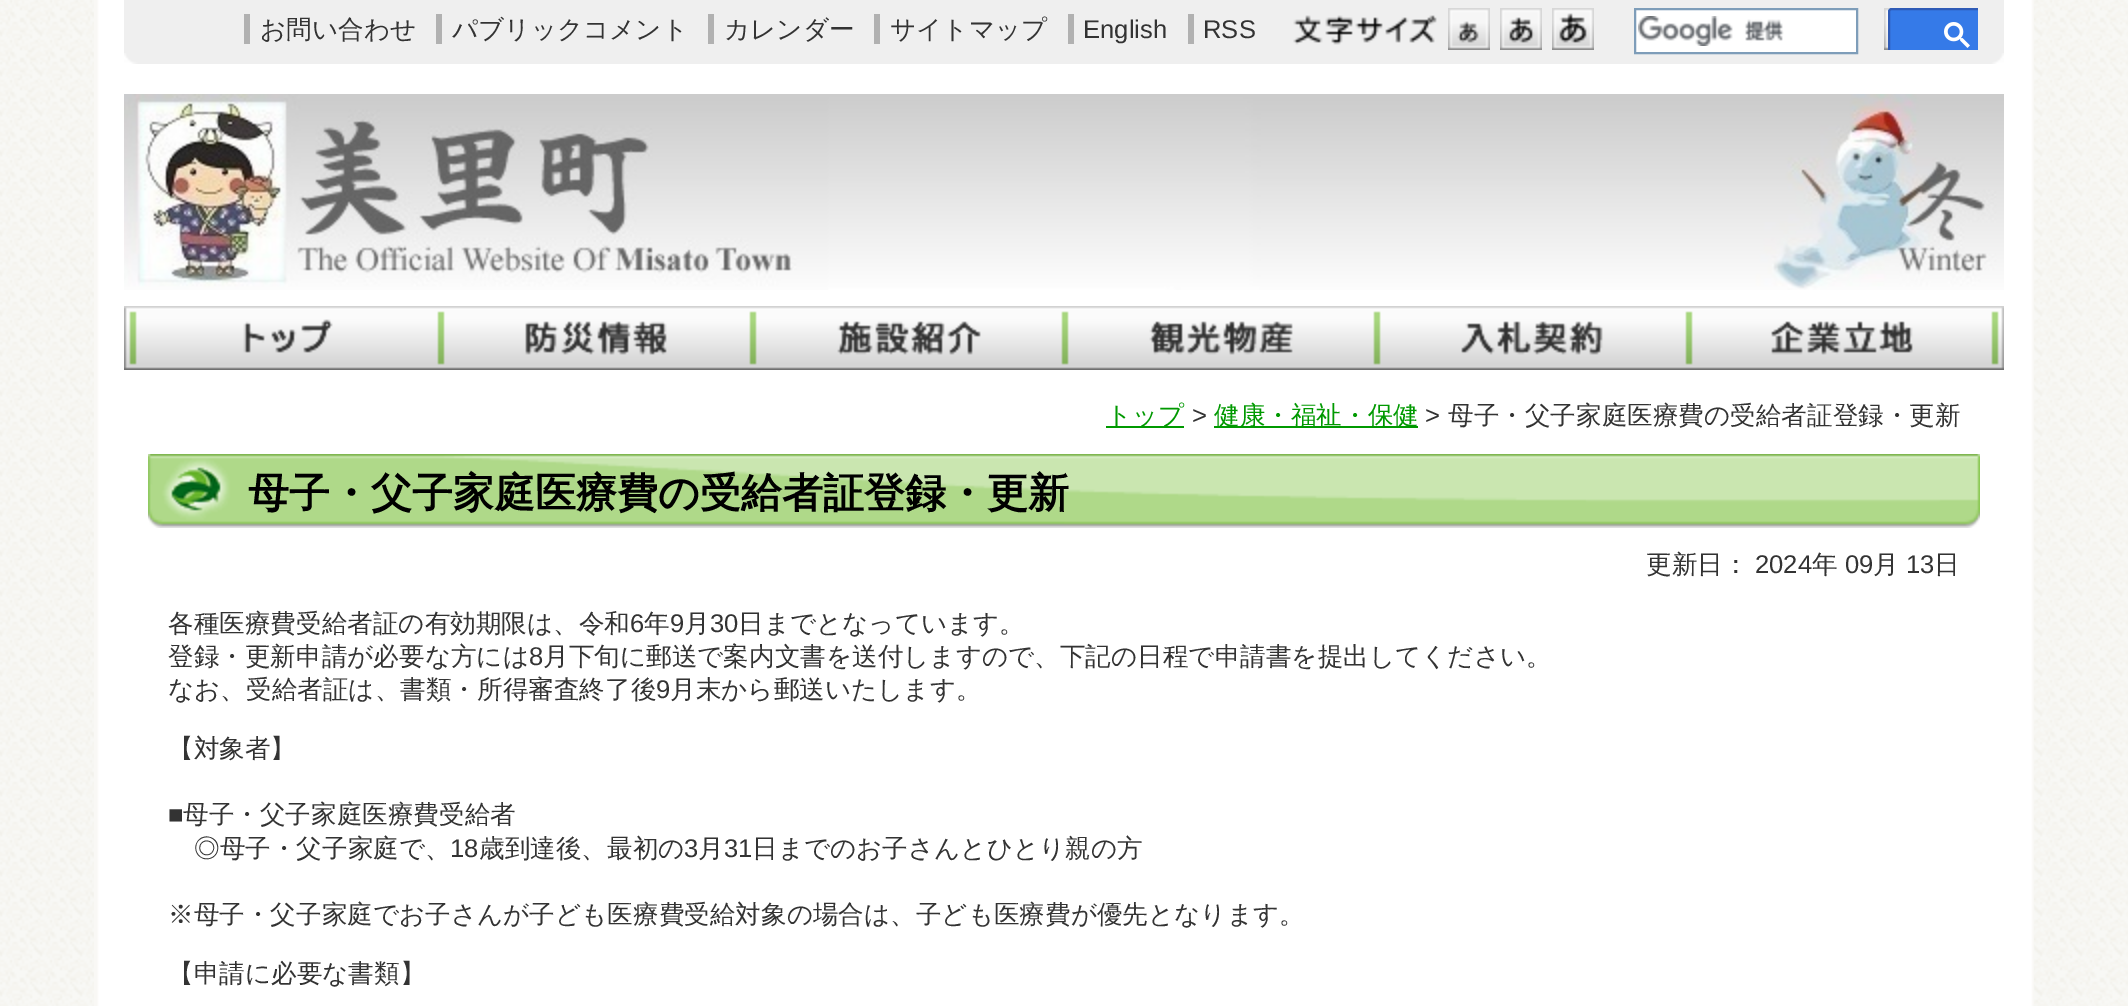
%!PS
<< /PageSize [2128 1006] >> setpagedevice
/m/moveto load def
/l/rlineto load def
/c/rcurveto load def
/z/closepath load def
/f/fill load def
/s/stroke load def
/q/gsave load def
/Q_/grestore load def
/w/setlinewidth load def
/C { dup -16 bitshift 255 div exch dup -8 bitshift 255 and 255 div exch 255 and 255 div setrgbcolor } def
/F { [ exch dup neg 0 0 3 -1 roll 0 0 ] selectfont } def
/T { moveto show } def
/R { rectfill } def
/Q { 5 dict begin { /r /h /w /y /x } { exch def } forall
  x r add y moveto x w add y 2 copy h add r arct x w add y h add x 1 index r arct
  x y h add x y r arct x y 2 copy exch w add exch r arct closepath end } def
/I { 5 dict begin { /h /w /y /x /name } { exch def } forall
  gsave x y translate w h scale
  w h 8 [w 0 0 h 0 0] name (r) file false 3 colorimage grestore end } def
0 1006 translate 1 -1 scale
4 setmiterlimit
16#FFFFFF C
0 0 2128 1006 R
(1.rgb) 0 0 2128 1006 I
(2.rgb) 94 0 1940 1006 I
16#EFEFEF C
124 0 1880 53 R
(3.rgb) 124 53 1880 11 I
16#B1B1B1 C
244 14 6 30 R
/WenQuanYiZenHei-Medium 25.6 F
16#333333 C
(お問い合わせ) 260 38 T
16#B1B1B1 C
436 14 6 30 R
16#333333 C
(パブリックコメント) 452 38 T
16#B1B1B1 C
708 14 6 30 R
16#333333 C
(カレンダー) 724 38 T
16#B1B1B1 C
874 14 6 30 R
16#333333 C
(サイトマップ) 890 38 T
16#B1B1B1 C
1068 14 6 30 R
/LiberationSans-Regular 25.6 F
16#333333 C
(English) 1083 38 T
16#B1B1B1 C
1188 14 6 30 R
16#333333 C
(RSS) 1203 38 T
(4.rgb) 1293 15 144 30 I
(5.rgb) 1448 8 42 42 I
(6.rgb) 1500 8 42 42 I
(7.rgb) 1552 8 42 42 I
16#FFFFFF C
1635 9 m 222 0 l 0 44 l -222 0 l z q f Q_
16#7E9DB9 C
2 w
s
(8.rgb) 1638 16 146 30 I
(9.rgb) 1884 8 8 42 I
16#357AE8 C
1892 8 m 86 0 l 0 42 l -90 0 l 0 -38 l 0 -2 2 -4 4 -4 c z f
q
1884 8 94 42 rectclip
16#2F5BB7 C
1889 9 136 52 3 Q s
Q_
(10.rgb) 1944 22 26 26 I
(11.rgb) 124 94 1880 196 I
(12.rgb) 124 306 316 64 I
(13.rgb) 440 306 312 64 I
(14.rgb) 752 306 312 64 I
(15.rgb) 1064 306 312 64 I
(16.rgb) 1376 306 312 64 I
(17.rgb) 1688 306 316 64 I
16#009900 C
1106 426 78 2 R
/WenQuanYiZenHei-Medium 25.6 F
(トップ) 1106 424 T
/LiberationSans-Regular 25.6 F
16#333333 C
(>) 1192 424 T
16#009900 C
1214 426 204 2 R
/WenQuanYiZenHei-Medium 25.6 F
(健康・福祉・保健) 1214 424 T
/LiberationSans-Regular 25.6 F
16#333333 C
(>) 1425 424 T
/WenQuanYiZenHei-Medium 25.6 F
(母子・父子家庭医療費の受給者証登録・更新) 1448 424 T
(18.rgb) 148 454 1832 74 I
/WenQuanYiZenHei-Bold 41 F
16#000000 C
(母子・父子家庭医療費の受給者証登録・更新) 248 507 T
/WenQuanYiZenHei-Medium 25.6 F
16#333333 C
(更新日：) 1646 573 T
/LiberationSans-Regular 25.6 F
(2024) 1755 573 T
/WenQuanYiZenHei-Medium 25.6 F
(年) 1812 573 T
/LiberationSans-Regular 25.6 F
(09) 1845 573 T
/WenQuanYiZenHei-Medium 25.6 F
(月) 1873 573 T
/LiberationSans-Regular 25.6 F
(13) 1906 573 T
/WenQuanYiZenHei-Medium 25.6 F
(日) 1934 573 T
(各種医療費受給者証の有効期限は、令和) 168 632 T
/LiberationSans-Regular 25.6 F
(6) 630 632 T
/WenQuanYiZenHei-Medium 25.6 F
(年) 644 632 T
/LiberationSans-Regular 25.6 F
(9) 670 632 T
/WenQuanYiZenHei-Medium 25.6 F
(月) 684 632 T
/LiberationSans-Regular 25.6 F
(30) 710 632 T
/WenQuanYiZenHei-Medium 25.6 F
(日までとなっています。) 738 632 T
(登録・更新申請が必要な方には) 168 665 T
/LiberationSans-Regular 25.6 F
(8) 529 665 T
/WenQuanYiZenHei-Medium 25.6 F
(月下旬に郵送で案内文書を送付しますので、下記の日程で申請書を提出してください。) 543 665 T
(なお、受給者証は、書類・所得審査終了後) 168 698 T
/LiberationSans-Regular 25.6 F
(9) 656 698 T
/WenQuanYiZenHei-Medium 25.6 F
(月末から郵送いたします。) 670 698 T
(【対象者】) 168 757 T
/LiberationSans-Regular 25.6 F
(■) 168 823 T
/WenQuanYiZenHei-Medium 25.6 F
(母子・父子家庭医療費受給者) 183 823 T
(◎母子・父子家庭で、) 194 857 T
/LiberationSans-Regular 25.6 F
(18) 450 857 T
/WenQuanYiZenHei-Medium 25.6 F
(歳到達後、最初の) 479 857 T
/LiberationSans-Regular 25.6 F
(3) 684 857 T
/WenQuanYiZenHei-Medium 25.6 F
(月) 698 857 T
/LiberationSans-Regular 25.6 F
(31) 724 857 T
/WenQuanYiZenHei-Medium 25.6 F
(日までのお子さんとひとり親の方) 752 857 T
(※母子・父子家庭でお子さんが子ども医療費受給対象の場合は、子ども医療費が優先となります。) 168 923 T
(【申請に必要な書類】) 168 982 T
showpage
